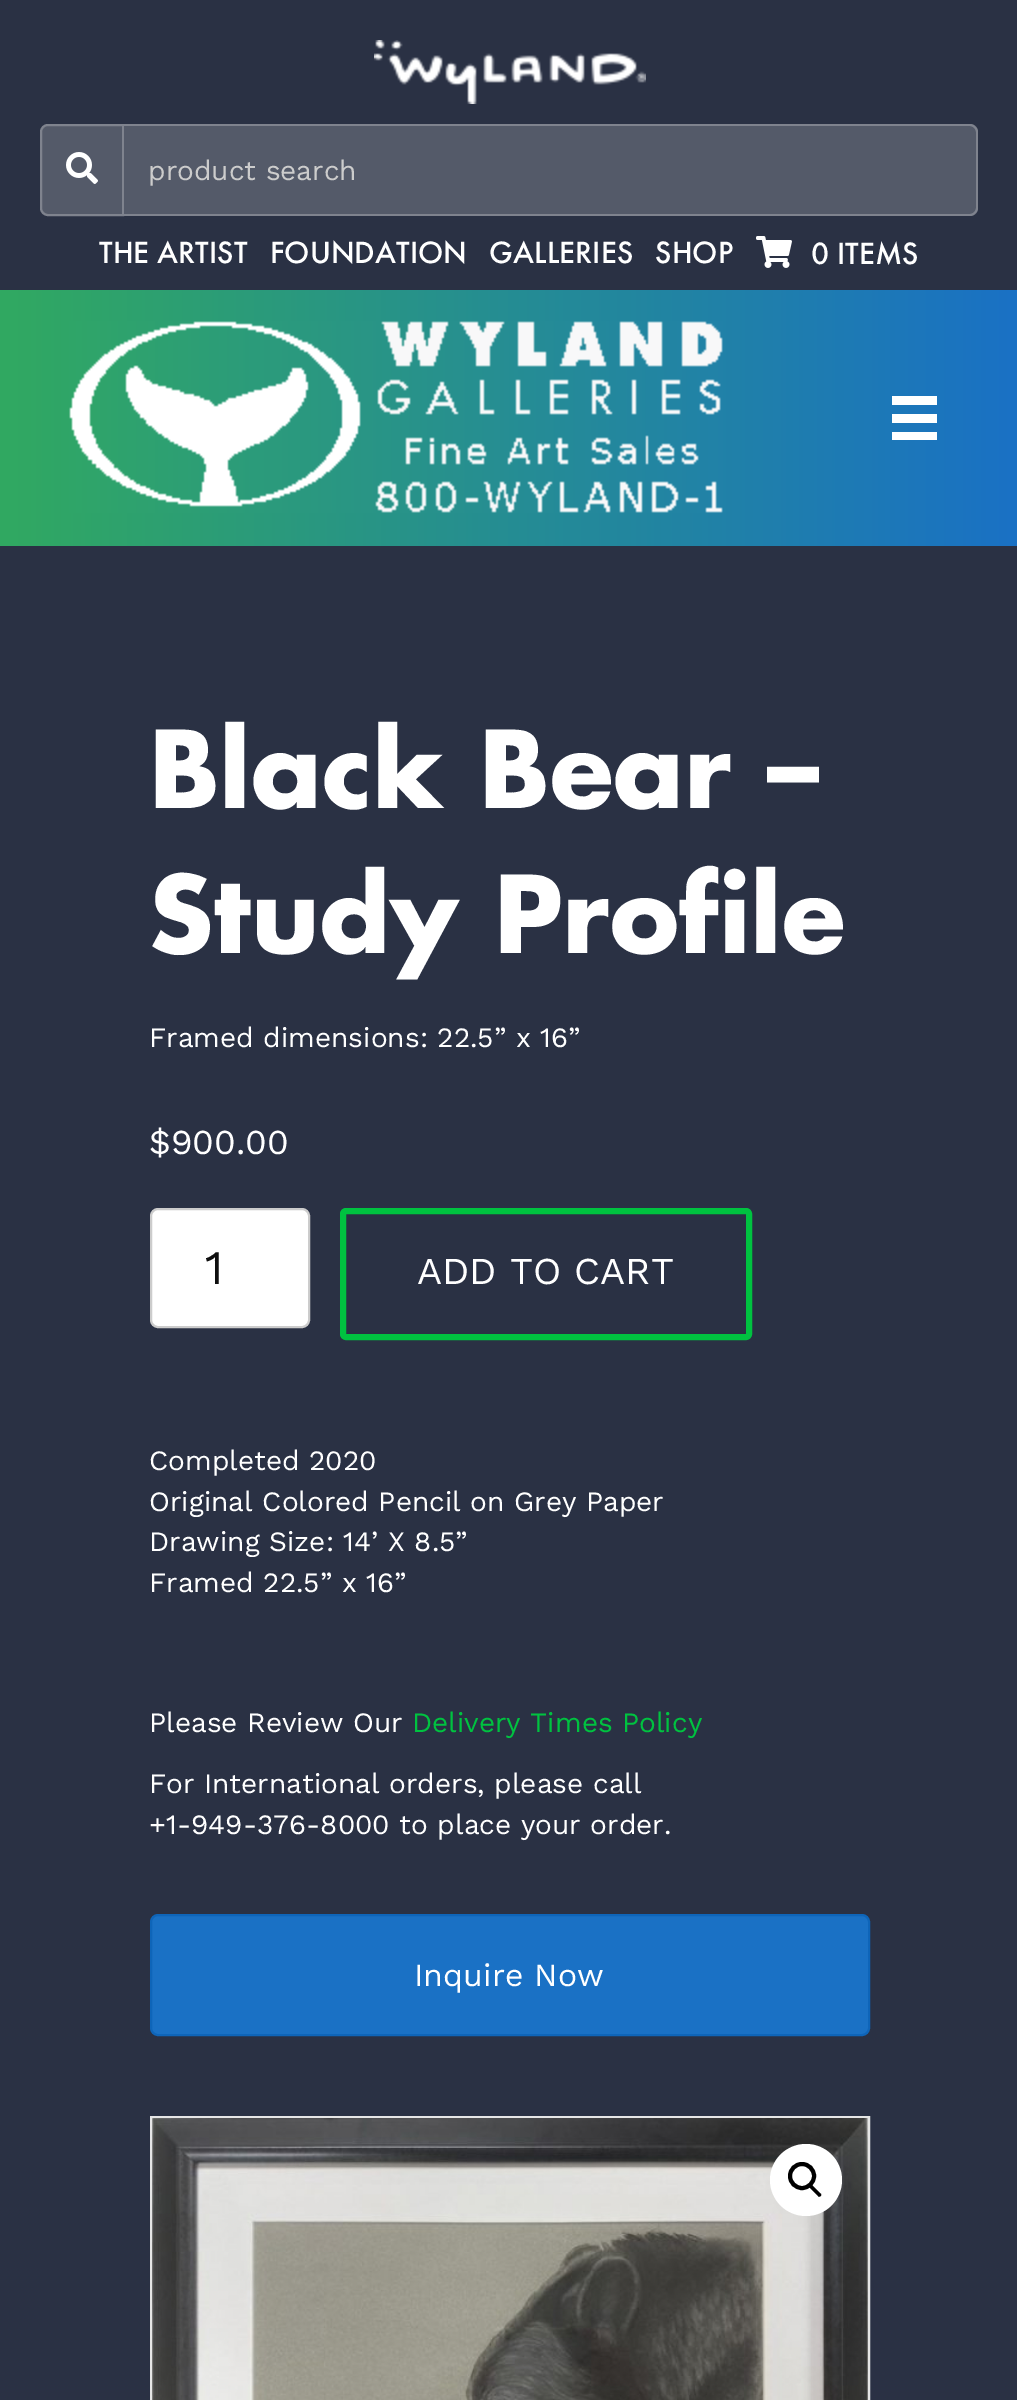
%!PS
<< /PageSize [1017 2400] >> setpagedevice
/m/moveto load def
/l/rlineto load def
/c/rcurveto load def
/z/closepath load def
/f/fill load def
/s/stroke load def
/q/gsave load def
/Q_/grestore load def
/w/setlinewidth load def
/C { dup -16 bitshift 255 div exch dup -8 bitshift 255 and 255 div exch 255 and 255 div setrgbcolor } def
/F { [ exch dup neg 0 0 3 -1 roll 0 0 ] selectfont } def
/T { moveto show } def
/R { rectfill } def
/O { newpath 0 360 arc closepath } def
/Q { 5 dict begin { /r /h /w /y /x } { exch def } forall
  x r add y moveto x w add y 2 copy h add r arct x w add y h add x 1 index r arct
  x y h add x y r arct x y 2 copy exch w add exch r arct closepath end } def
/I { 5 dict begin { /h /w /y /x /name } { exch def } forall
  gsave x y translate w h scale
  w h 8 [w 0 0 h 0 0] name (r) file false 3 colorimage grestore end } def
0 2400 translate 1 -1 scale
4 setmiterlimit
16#2A3144 C
0 0 1017 2400 R
(1.rgb) 374 40 272 64 I
16#545A69 C
48 125 m 75 0 l 0 90 l -75 0 l -4 0 -7 -3 -7 -7 c 0 -76 l 0 -4 3 -7 7 -7 c z q f Q_
16#7F838E C
2 w
s
(2.rgb) 66 152 32 32 I
16#545A69 C
124 124 m 846 0 l 4.5 0 8 3.5 8 8 c 0 76 l 0 4.5 -3.5 8 -8 8 c -846 0 l z f
16#7F838E C
124 124 m 846 0 l 4 0 8 4 8 8 c 0 76 l 0 4 -4 8 -8 8 c -846 0 l z 124 126 m 846 0 l 3 0 6 3 6 6 c 0 76 l 0 3 -3 6 -6 6 c -846 0 l z eofill
/WorkSans-Regular 28 F
16#CCCCCC C
(product search) 148 180 T
/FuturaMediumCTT-Medium 32 F
16#FFFFFF C
(THE ARTIST) 99 263 T
(FOUNDATION) 270 263 T
(GALLERIES) 489 263 T
(SHOP) 655 263 T
(3.rgb) 756 236 36 32 I
(0 ITEMS) 811 264 T
q 0 290 m 1017 0 l 0 256 l -1017 0 l z clip newpath
<< /ShadingType 2 /ColorSpace /DeviceRGB /Coords [0 418 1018 418] /Extend [true true] /Function << /FunctionType 2 /Domain [0 1] /C0 [.192 .663 .38] /C1 [.102 .443 .773] /N 1 >> >> shfill Q_
(4.rgb) 69 321 654 192 I
892 396 45 9 R
892 414 45 9 R
892 432 45 8 R
/Futura-Bold 104 F
(Black Bear –) 149 808 T
(Study Profile) 149 953 T
/WorkSans-Regular 28 F
(Framed dimensions: 22.5” x 16”) 149 1047 T
/WorkSans-Regular 35 F
($900.00) 149 1154 T
151 1209 158 118 7 Q q f Q_
16#CCCCCC C
s
/WorkSans-Regular 48 F
16#0F0F0F C
(1) 205 1284 T
16#00C240 C
6 w
343 1211 406 126 3 Q s
/WorkSans-Regular 38 F
16#FFFFFF C
(ADD TO CART) 417 1284 T
/WorkSans-Regular 28 F
(Completed 2020) 149 1470 T
(Original Colored Pencil on Grey Paper) 149 1511 T
(Drawing Size: 14’ X 8.5”) 149 1551 T
(Framed 22.5” x 16”) 149 1592 T
(Please Review Our) 149 1732 T
16#00C240 C
(Delivery Times Policy) 412 1732 T
16#FFFFFF C
(For International orders, please call) 149 1793 T
(+1-949-376-8000 to place your order.) 149 1834 T
16#1A71C5 C
151 1915 718 120 7 Q q f Q_
16#0E65B9 C
2 w
s
/WorkSans-Regular 32 F
16#FFFFFF C
(Inquire Now) 414 1986 T
16#E6E6E6 C
151 2117 718 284 rectstroke
(5.rgb) 152 2118 716 282 I
16#FFFFFF C
806 2180 36 O f
16#000000 C
4 w
802 2176 12 O s
809.5 2185 m .5 -1 2 -1 2.5 0 c 8.5 8.5 l 1 .5 1 2 0 2.5 c -.5 1 -2 1 -2.5 0 c -8.5 -8.5 l -1 -.5 -1 -2 0 -2.5 c z f
showpage
